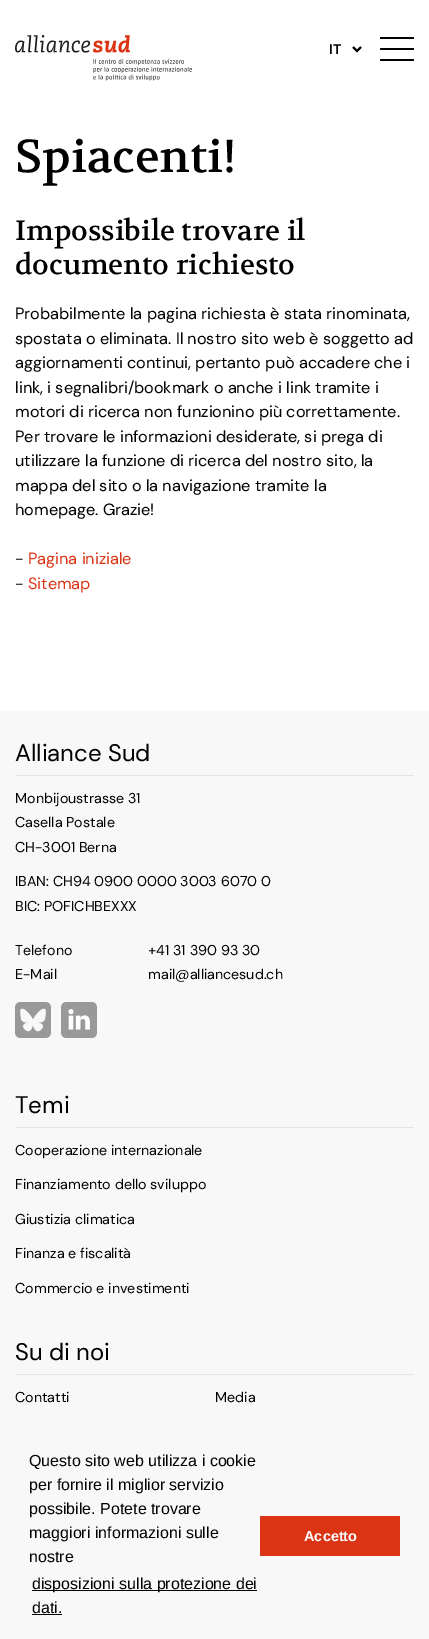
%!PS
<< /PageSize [429 1639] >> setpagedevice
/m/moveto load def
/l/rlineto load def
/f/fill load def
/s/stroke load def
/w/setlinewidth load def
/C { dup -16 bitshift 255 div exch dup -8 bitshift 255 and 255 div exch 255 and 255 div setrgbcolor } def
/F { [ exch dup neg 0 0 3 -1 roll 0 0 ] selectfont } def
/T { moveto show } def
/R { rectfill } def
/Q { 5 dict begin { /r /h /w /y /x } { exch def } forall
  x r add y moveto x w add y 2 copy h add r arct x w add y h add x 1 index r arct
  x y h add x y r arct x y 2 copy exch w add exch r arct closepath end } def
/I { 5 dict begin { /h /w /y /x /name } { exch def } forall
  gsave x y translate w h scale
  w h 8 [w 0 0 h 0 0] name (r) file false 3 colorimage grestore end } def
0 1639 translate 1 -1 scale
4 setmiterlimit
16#FFFFFF C
0 0 429 1639 R
(1.rgb) 15 35 177 46 I
16#000000 C
2 w
353 47 m 4 4 l 4 -4 l s
/DMSans-Bold 14 F
(IT) 329 54 T
380 37 34 2 1 Q f
380 48 34 2 1 Q f
380 59 34 2 1 Q f
/Volkhov-Regular 46 F
(Spiacenti!) 15 172 T
/Volkhov-Regular 28 F
(Impossibile trovare il) 15 240 T
(documento richiesto) 15 274 T
/DMSans-Regular 16.3 F
(Probabilmente la pagina richiesta è stata rinominata,) 15 319 T
(spostata o eliminata. Il nostro sito web è soggetto ad) 15 344 T
(aggiornamenti continui, pertanto può accadere che i) 15 368 T
(link, i segnalibri/bookmark o anche i link tramite i) 15 393 T
(motori di ricerca non funzionino più correttamente.) 15 417 T
(Per trovare le informazioni desiderate, si prega di) 15 442 T
(utilizzare la funzione di ricerca del nostro sito, la) 15 466 T
(mappa del sito o la navigazione tramite la) 15 491 T
(homepage. Grazie!) 15 515 T
(-) 15 564 T
16#DB3415 C
(Pagina iniziale) 28 564 T
16#000000 C
(-) 15 589 T
16#DB3415 C
(Sitemap) 28 589 T
16#F8F8F8 C
0 711 429 928 R
16#E5E5E5 C
15 775 399 1 R
/DMSans-Regular 24 F
16#000000 C
(Alliance Sud) 15 761 T
/DMSans-Regular 14.3 F
(Monbijoustrasse 31) 15 803 T
(Casella Postale) 15 827 T
(CH-3001 Berna) 15 852 T
(IBAN: CH94 0900 0000 3003 6070 0) 15 886 T
(BIC: POFICHBEXXX) 15 911 T
(Telefono) 15 955 T
(E-Mail) 15 979 T
(+41 31 390 93 30) 148 955 T
(mail@alliancesud.ch) 148 979 T
(2.rgb) 15 1002 36 36 I
(3.rgb) 61 1002 36 36 I
16#E5E5E5 C
15 1127 399 1 R
/DMSans-Regular 24 F
16#000000 C
(Temi) 15 1113 T
/DMSans-Regular 14.3 F
(Cooperazione internazionale) 15 1155 T
(Finanziamento dello sviluppo) 15 1189 T
(Giustizia climatica) 15 1224 T
(Finanza e fiscalità) 15 1258 T
(Commercio e investimenti) 15 1293 T
16#E5E5E5 C
15 1374 399 1 R
/DMSans-Regular 24 F
16#000000 C
(Su di noi) 15 1360 T
/DMSans-Regular 14.3 F
(Contatti) 15 1402 T
(Media) 215 1402 T
/LiberationSans-Regular 16 F
(Questo sito web utilizza i cookie) 29 1466 T
(per fornire il miglior servizio) 29 1490 T
(possibile. Potete trovare) 29 1514 T
(maggiori informazioni sulle) 29 1538 T
(nostre) 29 1562 T
32 1590 225 1 R
(disposizioni sulla protezione dei) 32 1589 T
(dati.) 32 1613 T
32 1614 30 1 R
16#DB3415 C
260 1516 140 40 R
/LiberationSans-Bold 14.5 F
16#FFFFFF C
(Accetto) 304 1541 T
showpage
